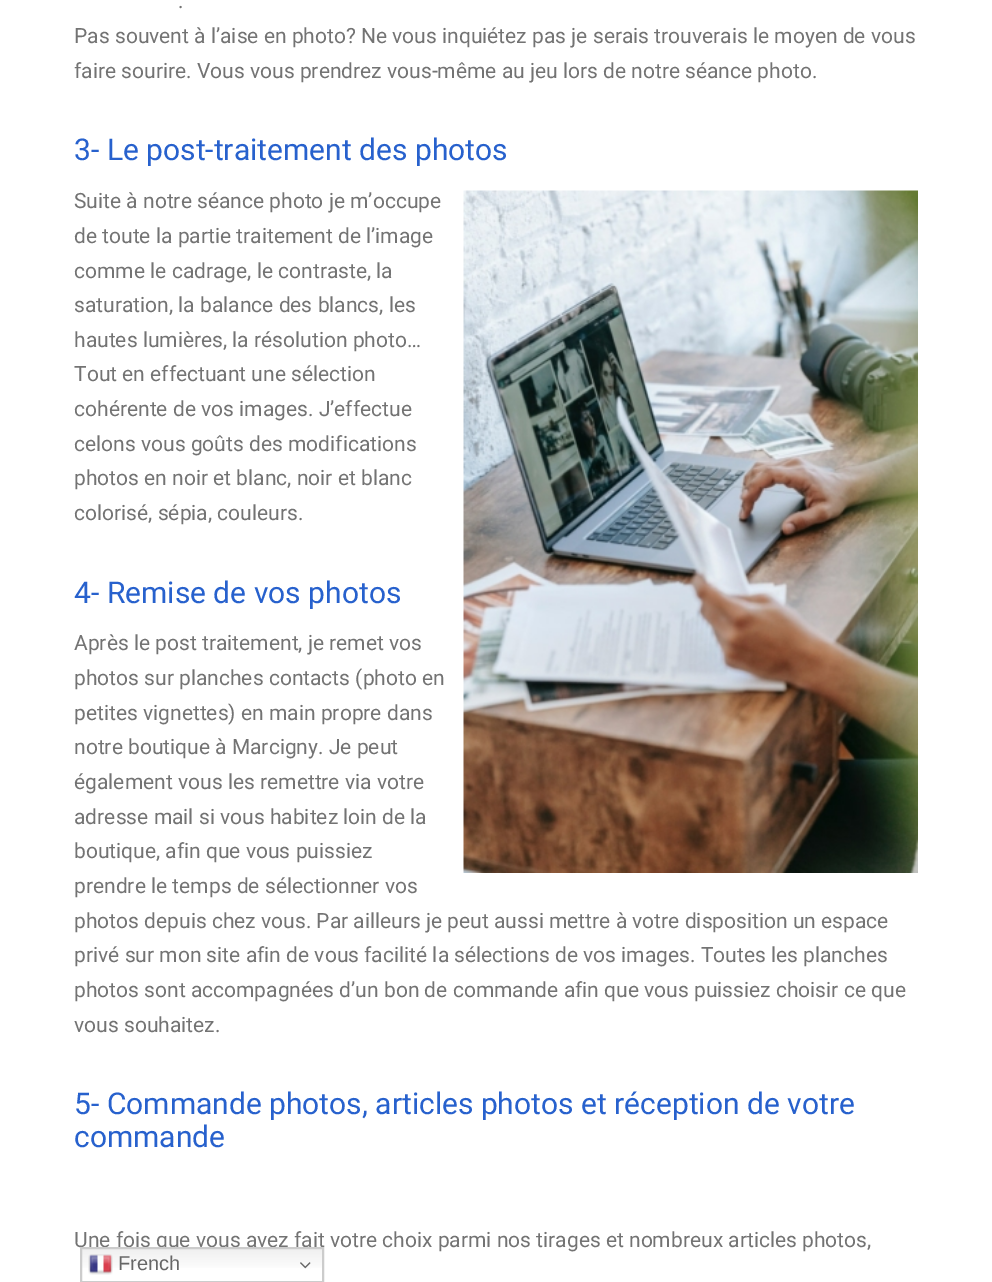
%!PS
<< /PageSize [992 1282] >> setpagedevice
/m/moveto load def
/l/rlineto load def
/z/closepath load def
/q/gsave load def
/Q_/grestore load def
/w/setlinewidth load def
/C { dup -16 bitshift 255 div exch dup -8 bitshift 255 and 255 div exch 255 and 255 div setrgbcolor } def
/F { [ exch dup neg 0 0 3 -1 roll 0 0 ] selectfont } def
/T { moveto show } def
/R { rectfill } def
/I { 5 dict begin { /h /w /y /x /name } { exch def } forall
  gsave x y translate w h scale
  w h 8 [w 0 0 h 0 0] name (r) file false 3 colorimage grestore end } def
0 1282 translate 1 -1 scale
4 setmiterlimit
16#FFFFFF C
0 0 992 1282 R
/Roboto-Regular 21 F
16#737373 C
(.) 178 8 T
(Pas souvent à l’aise en photo? Ne vous inquiétez pas je serais trouverais le moyen de vous) 74 43 T
(faire sourire. Vous vous prendrez vous-même au jeu lors de notre séance photo.) 74 78 T
/Roboto-Regular 30 F
16#2761CD C
(3- Le post-traitement des photos) 74 160 T
/Roboto-Regular 21 F
16#737373 C
(Suite à notre séance photo je m’occupe) 74 208 T
(de toute la partie traitement de l’image) 74 243 T
(comme le cadrage, le contraste, la) 74 278 T
(saturation, la balance des blancs, les) 74 312 T
(hautes lumières, la résolution photo…) 74 347 T
(Tout en effectuant une sélection) 74 381 T
(cohérente de vos images. J’effectue) 74 416 T
(celons vous goûts des modifications) 74 451 T
(photos en noir et blanc, noir et blanc) 74 485 T
(colorisé, sépia, couleurs.) 74 520 T
(1.rgb) 463 190 455 683 I
/Roboto-Regular 30 F
16#2761CD C
(4- Remise de vos photos) 74 603 T
/Roboto-Regular 21 F
16#737373 C
(Après le post traitement, je remet vos) 74 650 T
(photos sur planches contacts \(photo en) 74 685 T
(petites vignettes\) en main propre dans) 74 720 T
(notre boutique à Marcigny. Je peut) 74 754 T
(également vous les remettre via votre) 74 789 T
(adresse mail si vous habitez loin de la) 74 824 T
(boutique, afin que vous puissiez) 74 858 T
(prendre le temps de sélectionner vos) 74 893 T
(photos depuis chez vous. Par ailleurs je peut aussi mettre à votre disposition un espace) 74 928 T
(privé sur mon site afin de vous facilité la sélections de vos images. Toutes les planches) 74 962 T
(photos sont accompagnées d’un bon de commande afin que vous puissiez choisir ce que) 74 997 T
(vous souhaitez.) 74 1032 T
/Roboto-Regular 30 F
16#2761CD C
(5- Commande photos, articles photos et réception de votre) 74 1114 T
(commande) 74 1147 T
/Roboto-Regular 21 F
16#737373 C
(Une fois que vous avez fait votre choix parmi nos tirages et nombreux articles photos,) 74 1247 T
q 82 1249 m 240 0 l 0 19 l -240 0 l z clip newpath
<< /ShadingType 2 /ColorSpace /DeviceRGB /Coords [202 1247 202 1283] /Extend [true true] /Function << /FunctionType 3 /Domain [0 1] /Functions [<< /FunctionType 2 /Domain [0 1] /C0 [.937 .937 .937] /C1 [1 1 1] /N 1 >> << /FunctionType 2 /Domain [0 1] /C0 [1 1 1] /C1 [1 1 1] /N 1 >>] /Bounds [.7] /Encode [0 1 0 1] >> >> shfill Q_
16#CCCCCC C
2 w
81 1248 242 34 rectstroke
(2.rgb) 88 1254 25 21 I
/LiberationSans-Regular 20 F
16#666666 C
(French) 118 1270 T
(3.rgb) 300 1262 11 7 I
showpage
